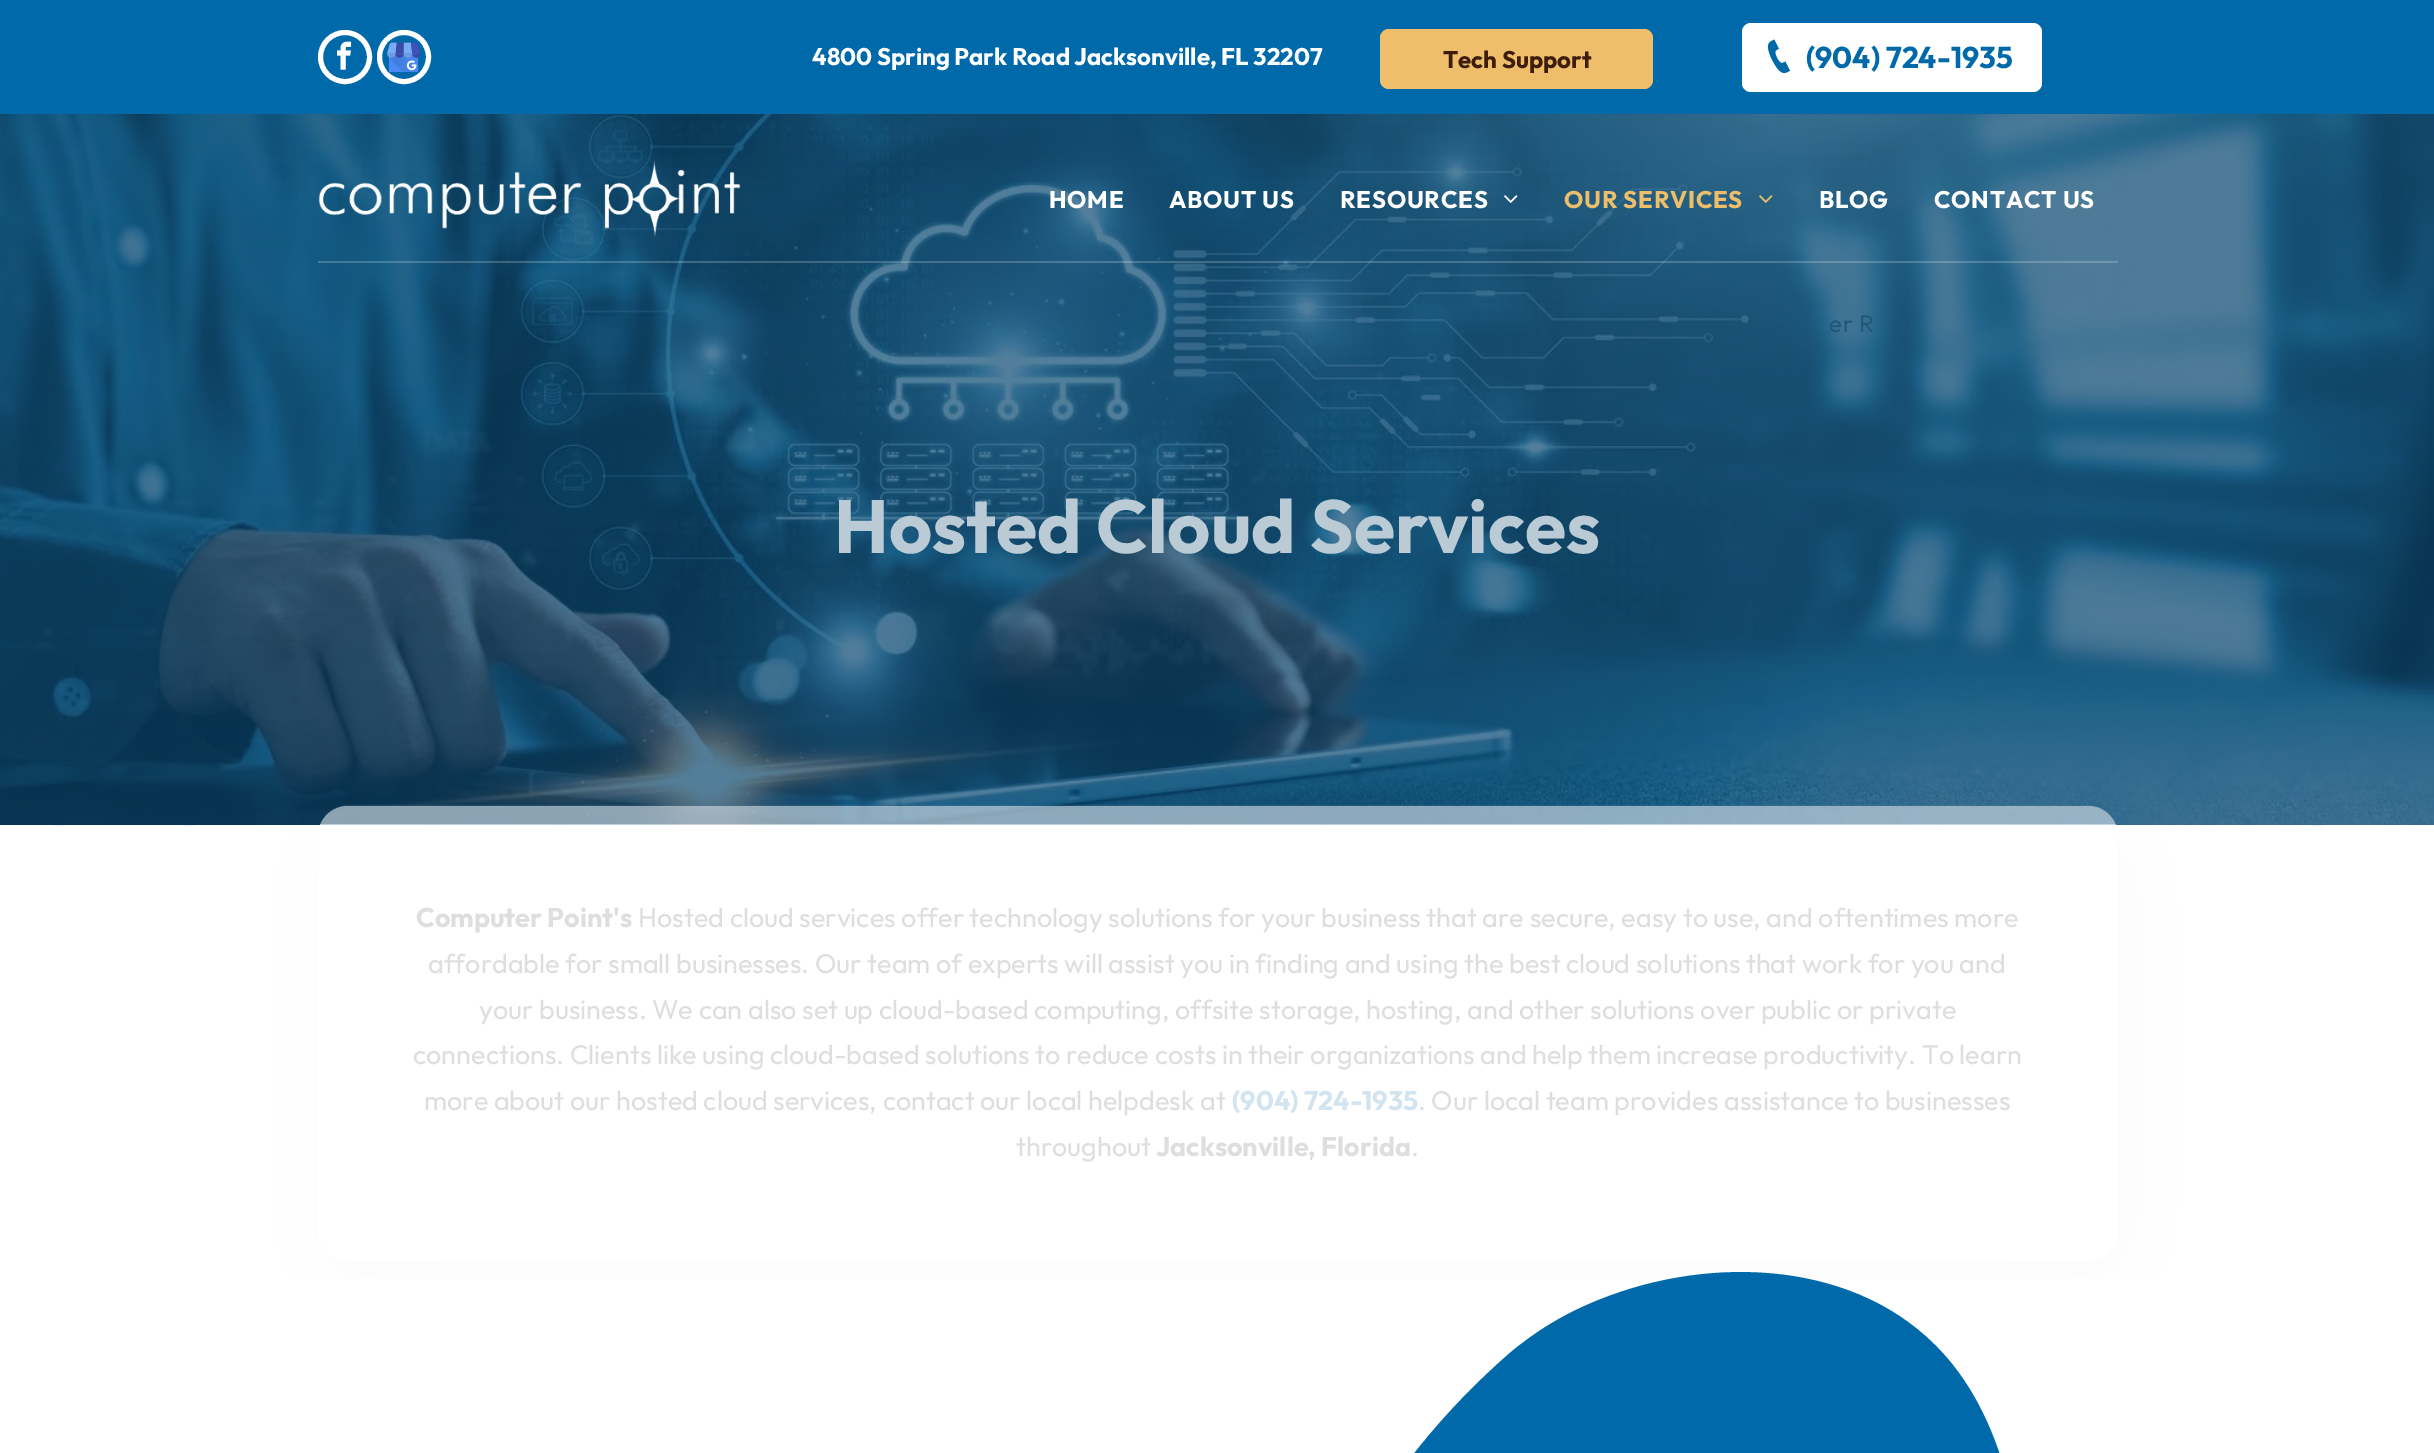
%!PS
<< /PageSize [2434 1453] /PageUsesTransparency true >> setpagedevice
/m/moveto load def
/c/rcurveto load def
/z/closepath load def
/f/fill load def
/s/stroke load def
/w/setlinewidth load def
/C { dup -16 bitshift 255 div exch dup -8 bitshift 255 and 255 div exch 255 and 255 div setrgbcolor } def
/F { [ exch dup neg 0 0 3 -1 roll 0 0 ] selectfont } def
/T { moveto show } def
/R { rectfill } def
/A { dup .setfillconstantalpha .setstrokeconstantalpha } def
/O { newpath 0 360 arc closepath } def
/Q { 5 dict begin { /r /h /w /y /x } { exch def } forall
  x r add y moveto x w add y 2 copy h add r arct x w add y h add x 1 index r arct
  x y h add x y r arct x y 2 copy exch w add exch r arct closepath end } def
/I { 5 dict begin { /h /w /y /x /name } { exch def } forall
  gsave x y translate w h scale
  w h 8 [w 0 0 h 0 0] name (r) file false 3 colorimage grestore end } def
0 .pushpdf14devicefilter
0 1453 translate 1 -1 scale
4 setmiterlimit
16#FFFFFF C
0 0 2434 1453 R
16#0069AA C
0 0 2434 114 R
16#FFFFFF C
5 w
345 57 24.5 O s
(1.rgb) 337 41 15 29 I
404 57 24.5 O s
(2.rgb) 387 42 33 30 I
/Outfit-Bold 24 F
(4800 Spring Park Road Jacksonville, FL 32207) 812 65 T
16#EEBE6A C
1380 29 273 60 9 Q f
16#3E1D0C C
(Tech Support) 1443 68 T
16#FFFFFF C
1742 23 300 69 9 Q f
(3.rgb) 1767 39 24 35 I
/Outfit-Bold 30 F
16#0069AA C
(\(904\) 724-1935) 1806 68 T
(7.rgb) 0 114 2434 711 I
0.2 A
16#FFFFFF C
318 261 450 2 R
1 A
(4.rgb) 318 160 423 77 I
0.2 A
768 261 1350 2 R
/Outfit-Bold 24 F
1 A
1049 208 m .75 0 (HOME) ashow
1169 208 m .75 0 (ABOUT US) ashow
1340 208 m .75 0 (RESOURCES) ashow
(5.rgb) 1504 195 14 8 I
16#EEBE6A C
1564 208 m .75 0 (OUR SERVICES) ashow
(6.rgb) 1759 195 14 8 I
/Outfit-Regular 24 F
16#1F587B C
1829 332 m .75 0 (er R) ashow
/Outfit-Bold 24 F
16#FFFFFF C
1819 208 m .75 0 (BLOG) ashow
1934 208 m .75 0 (CONTACT US) ashow
/Outfit-Bold 75 F
16#BACBD5 C
(Hosted Cloud Services) 834 553 T
(8.rgb) 53 824 2270 455 I
0.45 A
16#FFFFFF C
318 806 1800 456 30 Q f
/Outfit-Bold 27 F
1 A
16#DCDEE0 C
(Computer Point's) 416 927 T
/Outfit-Regular 27 F
(Hosted cloud services offer technology solutions for your business that are secure, easy to use, and oftentimes more) 638 927 T
(affordable for small businesses. Our team of experts will assist you in finding and using the best cloud solutions that work for you and) 428 973 T
(your business. We can also set up cloud-based computing, offsite storage, hosting, and other solutions over public or private) 479 1019 T
(connections. Clients like using cloud-based solutions to reduce costs in their organizations and help them increase productivity. To learn) 413 1064 T
(more about our hosted cloud services, contact our local helpdesk at) 424 1110 T
/Outfit-Bold 27 F
16#D1E4F0 C
(\(904\) 724-1935) 1232 1110 T
/Outfit-Regular 27 F
16#DCDEE0 C
(. Our local team provides assistance to businesses) 1418 1110 T
(throughout) 1016 1156 T
/Outfit-Bold 27 F
(Jacksonville, Florida) 1156 1156 T
/Outfit-Regular 27 F
(.) 1411 1156 T
16#0069AA C
1589 1304 m 112 -49 258 -46 345 40 c 36 35 59 83 72 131 c 28 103 37 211 26 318 c -10 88 -32 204 -95 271 c -91 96 -229 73 -338 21 c -44 -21 -87 -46 -127 -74 c -78 -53 -142 -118 -164 -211 c -21 -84 -1 -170 39 -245 c 42 -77 98 -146 164 -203 c 24 -20 50 -36 78 -48 c z f
.poppdf14devicefilter showpage
